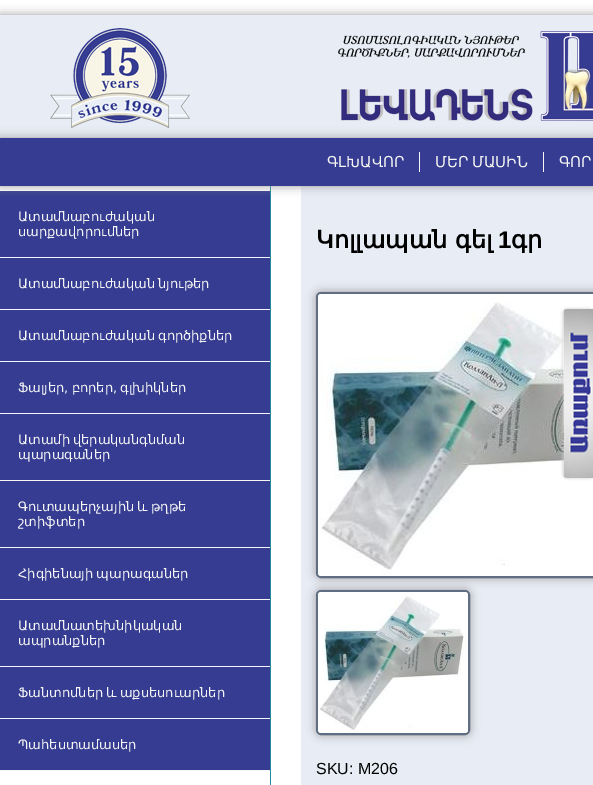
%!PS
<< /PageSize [593 785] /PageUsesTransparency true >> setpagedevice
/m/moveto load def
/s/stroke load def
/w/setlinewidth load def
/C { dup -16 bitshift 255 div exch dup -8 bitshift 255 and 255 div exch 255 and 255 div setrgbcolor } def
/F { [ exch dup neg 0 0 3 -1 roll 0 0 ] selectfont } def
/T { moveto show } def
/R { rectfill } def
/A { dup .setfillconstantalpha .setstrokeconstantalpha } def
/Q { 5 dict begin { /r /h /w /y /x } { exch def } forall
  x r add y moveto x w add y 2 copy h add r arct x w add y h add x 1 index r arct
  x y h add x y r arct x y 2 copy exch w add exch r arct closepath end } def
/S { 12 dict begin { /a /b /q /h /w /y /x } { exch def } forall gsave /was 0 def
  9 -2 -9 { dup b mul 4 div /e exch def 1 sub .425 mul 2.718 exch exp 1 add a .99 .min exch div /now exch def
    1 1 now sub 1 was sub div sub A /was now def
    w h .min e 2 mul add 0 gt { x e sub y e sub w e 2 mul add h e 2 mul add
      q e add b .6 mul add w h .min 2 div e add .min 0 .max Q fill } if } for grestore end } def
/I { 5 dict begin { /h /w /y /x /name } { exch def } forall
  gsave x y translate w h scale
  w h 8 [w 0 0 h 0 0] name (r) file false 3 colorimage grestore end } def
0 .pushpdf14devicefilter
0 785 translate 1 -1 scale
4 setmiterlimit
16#FFFFFF C
0 0 593 785 R
16#999999 C
0 15 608 123 0 5 1 S
16#E8EDF5 C
0 15 593 123 R
(1.rgb) 50 28 140 100 I
(2.rgb) 338 31 255 90 I
16#353C91 C
0 191 270 66 R
16#2589A3 C
270 186 1 599 R
16#E8EDF5 C
301 186 292 599 R
16#999999 C
0 138 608 48 0 5 1 S
16#353C91 C
0 138 593 48 R
/DejaVuSans-Regular 15 F
16#F5F5F5 C
(ԳԼԽԱՎՈՐ) 327 167 T
419 152 1 20 R
435 167 m -1 0 32 (ՄԵՐ ՄԱՍԻՆ) widthshow
543 152 1 20 R
(ԳՈՐ) 559 167 T
0 257 270 1 R
/DejaVuSans-Regular 13 F
(Ատամնաբուժական) 18 221 T
(սարքավորումներ) 18 236 T
16#353C91 C
0 258 270 51 R
16#F5F5F5 C
0 309 270 1 R
18 288 m -1 0 32 (Ատամնաբուժական նյութեր) widthshow
16#353C91 C
0 310 270 51 R
16#F5F5F5 C
0 361 270 1 R
18 340 m -1 0 32 (Ատամնաբուժական գործիքներ) widthshow
16#353C91 C
0 362 270 51 R
16#F5F5F5 C
0 413 270 1 R
18 392 m -1 0 32 (Ֆալյեր, բորեր, գլխիկներ) widthshow
16#353C91 C
0 414 270 66 R
16#F5F5F5 C
0 480 270 1 R
18 444 m -1 0 32 (Ատամի վերականգնման) widthshow
(պարագաներ) 18 459 T
16#353C91 C
0 481 270 66 R
16#F5F5F5 C
0 547 270 1 R
18 511 m -1 0 32 (Գուտապերչային և թղթե) widthshow
(շտիֆտեր) 18 526 T
16#353C91 C
0 548 270 51 R
16#F5F5F5 C
0 599 270 1 R
18 578 m -1 0 32 (Հիգիենայի պարագաներ) widthshow
16#353C91 C
0 600 270 66 R
16#F5F5F5 C
0 666 270 1 R
(Ատամնատեխնիկական) 18 630 T
(ապրանքներ) 18 645 T
16#353C91 C
0 667 270 51 R
16#F5F5F5 C
0 718 270 1 R
18 697 m -1 0 32 (Ֆանտոմներ և աքսեսուարներ) widthshow
16#353C91 C
0 719 270 51 R
16#F5F5F5 C
0 770 270 1 R
(Պահեստամասեր) 18 749 T
/DejaVuSans-Bold 24 F
16#000000 C
(Կոլլապան գել) 316 248 T
/LiberationSans-Bold 24 F
(1) 498 248 T
/DejaVuSans-Bold 24 F
(գր) 511 248 T
16#999999 C
316 292 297 286 5 5 1 S
16#5F6E82 C
2 w
317 293 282 284 4 Q s
(3.rgb) 318 294 275 282 I
16#999999 C
316 590 154 145 5 5 1 S
16#5F6E82 C
317 591 152 143 4 Q s
(4.rgb) 318 592 150 141 I
/LiberationSans-Regular 16 F
16#000000 C
(SKU: M206) 316 774 T
16#CCCCCC C
563 309 30 169 4 1.5 1 S
(5.rgb) 563 309 30 169 I
.poppdf14devicefilter showpage
